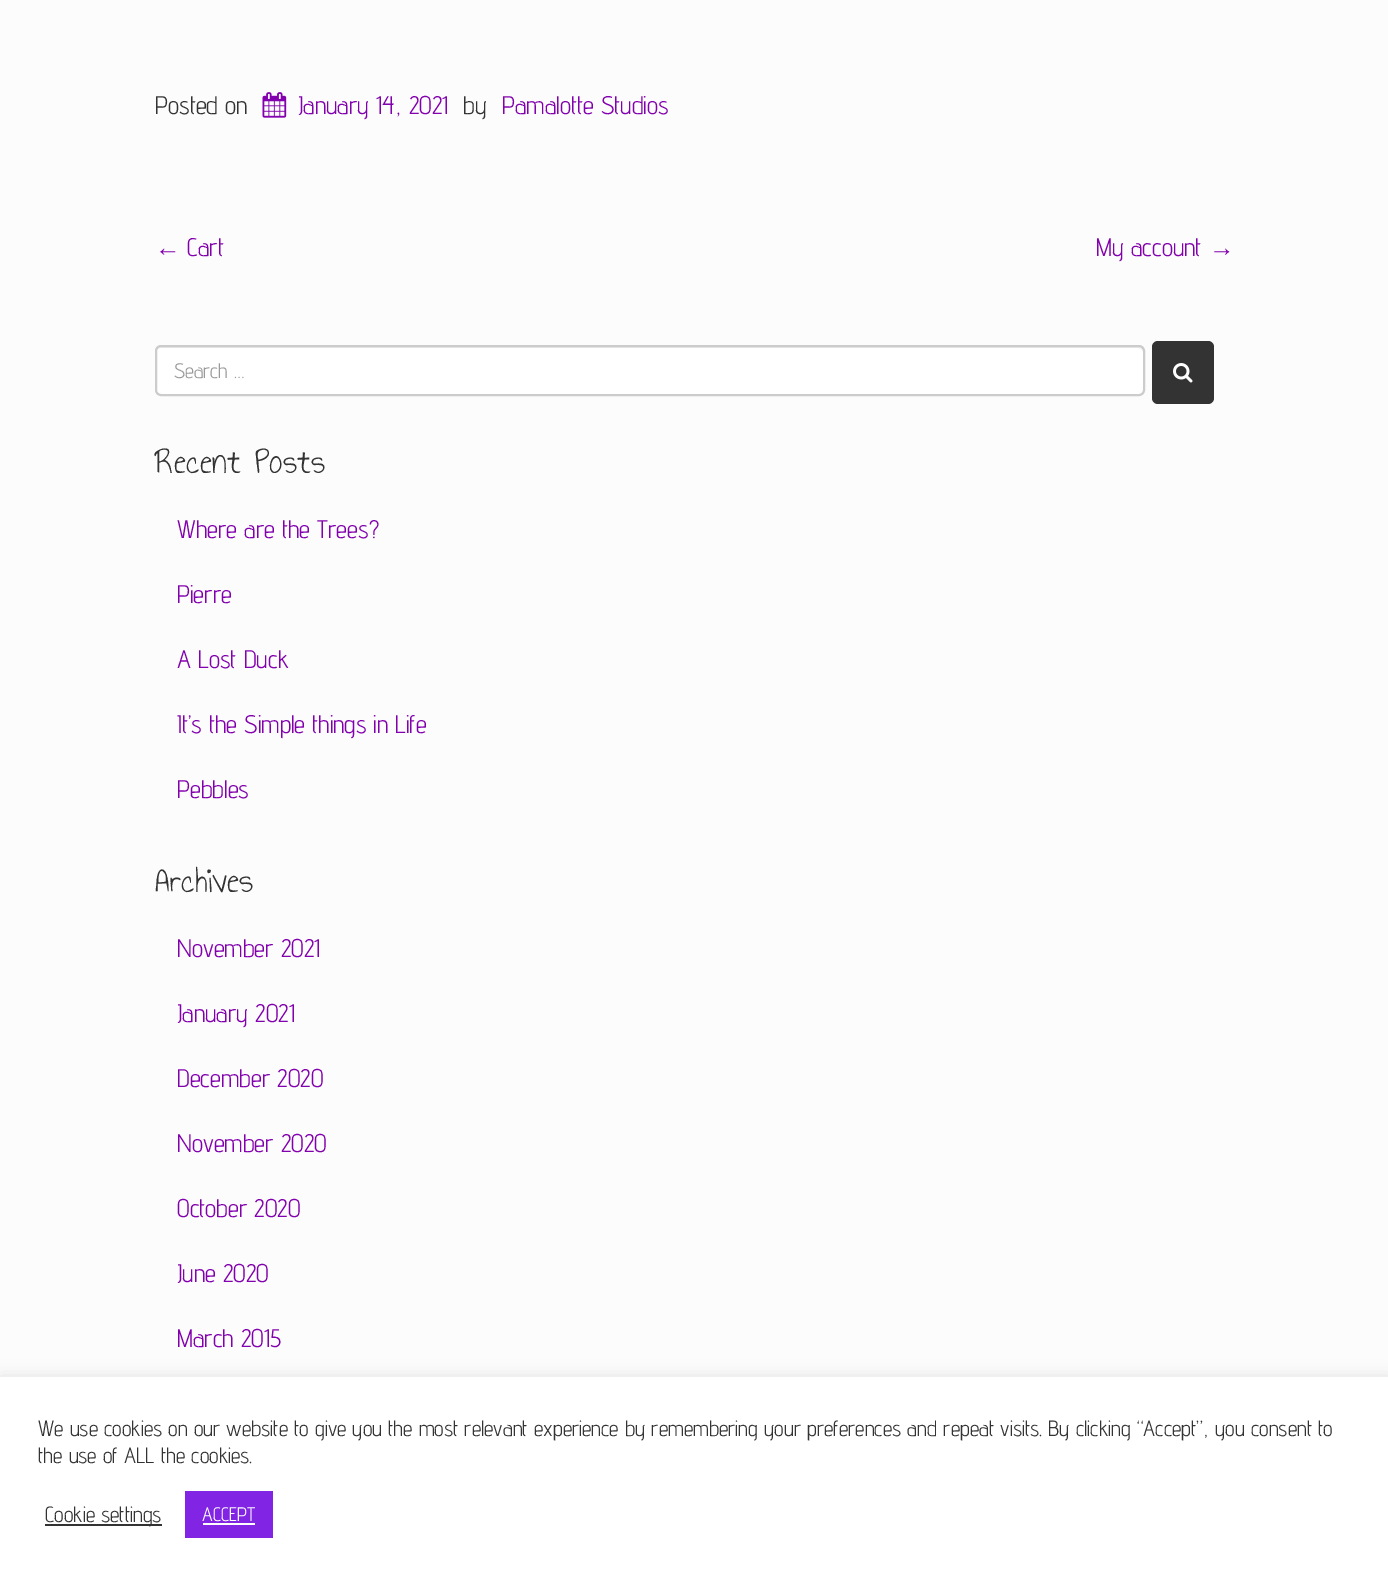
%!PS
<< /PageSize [1388 1582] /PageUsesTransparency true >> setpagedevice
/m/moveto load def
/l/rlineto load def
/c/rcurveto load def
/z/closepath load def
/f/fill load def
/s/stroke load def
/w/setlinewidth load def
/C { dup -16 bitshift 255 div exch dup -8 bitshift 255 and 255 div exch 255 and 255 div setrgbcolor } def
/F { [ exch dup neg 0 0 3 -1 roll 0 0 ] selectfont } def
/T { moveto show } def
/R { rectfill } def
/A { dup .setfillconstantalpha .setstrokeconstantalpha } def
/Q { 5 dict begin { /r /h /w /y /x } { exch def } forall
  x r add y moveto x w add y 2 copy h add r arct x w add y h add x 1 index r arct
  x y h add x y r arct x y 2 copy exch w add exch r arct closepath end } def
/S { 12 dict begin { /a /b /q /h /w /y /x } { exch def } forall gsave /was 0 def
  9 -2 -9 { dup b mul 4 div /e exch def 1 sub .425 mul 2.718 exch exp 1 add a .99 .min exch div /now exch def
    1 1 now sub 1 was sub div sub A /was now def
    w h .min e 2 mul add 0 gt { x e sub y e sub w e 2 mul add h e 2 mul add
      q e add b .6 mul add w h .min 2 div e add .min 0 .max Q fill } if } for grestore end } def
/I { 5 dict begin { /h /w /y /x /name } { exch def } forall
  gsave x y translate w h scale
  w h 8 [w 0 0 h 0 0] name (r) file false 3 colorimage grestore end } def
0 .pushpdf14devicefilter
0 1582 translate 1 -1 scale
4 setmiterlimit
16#FCFCFC C
0 0 1388 1582 R
/AdventPro-Regular 25.5 F
16#333333 C
(Posted on) 155 114 T
(1.rgb) 262 92 25 26 I
16#8200AD C
(January 14, 2021) 298 114 T
16#333333 C
(by) 463 114 T
16#8200AD C
(Pamalotte Studios) 502 114 T
/LiberationSans-Regular 25.5 F
(←) 155 256 T
/AdventPro-Regular 25.5 F
(Cart) 187 256 T
(My account) 1096 256 T
/LiberationSans-Regular 25.5 F
(→) 1209 256 T
16#FFFFFF C
155 345 990 51 6 Q f
16#ECECEC C
160 348 m 978 0 l 3 0 5 2 5 4 c 0 -3 -2 -5 -5 -5 c -977 0 l -3 0 -5 2 -5 5 c 0 -2 2 -4 4 -4 c z f
16#CCCCCC C
2 w
156 346 988 49 5 Q s
/AdventPro-Regular 21 F
16#999999 C
(Search …) 174 378 T
16#333333 C
1152 341 62 63 6 Q f
(2.rgb) 1173 363 20 20 I
/AnnieUseYourTelescope-Regular 37.5 F
(Recent Posts) 155 473 T
/AdventPro-Regular 25.5 F
16#8200AD C
(Where are the Trees?) 177 538 T
(Pierre) 177 603 T
(A Lost Duck) 177 668 T
(It’s the Simple things in Life) 177 733 T
(Pebbles) 177 798 T
/AnnieUseYourTelescope-Regular 37.5 F
16#333333 C
(Archives) 155 892 T
/AdventPro-Regular 25.5 F
16#8200AD C
(November 2021) 177 957 T
(January 2021) 177 1022 T
(December 2020) 177 1087 T
(November 2020) 177 1152 T
(October 2020) 177 1217 T
(June 2020) 177 1282 T
(March 2015) 177 1347 T
16#ACABAB C
0 1376 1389 205 0 7.5 .3 S
16#FFFFFF C
0 1377 1388 205 R
/AdventPro-Regular 22 F
16#333333 C
(We use cookies on our website to give you the most relevant experience by remembering your preferences and repeat visits. By clicking “Accept”, you consent to) 38 1436 T
(the use of ALL the cookies.) 38 1463 T
45 1524 117 2 R
(Cookie settings) 45 1522 T
16#8224E3 C
185 1491 88 47 R
/AdventPro-Regular 19.5 F
16#FFFFFF C
(ACCEPT) 202 1521 T
203 1523 52 2 R
.poppdf14devicefilter showpage
